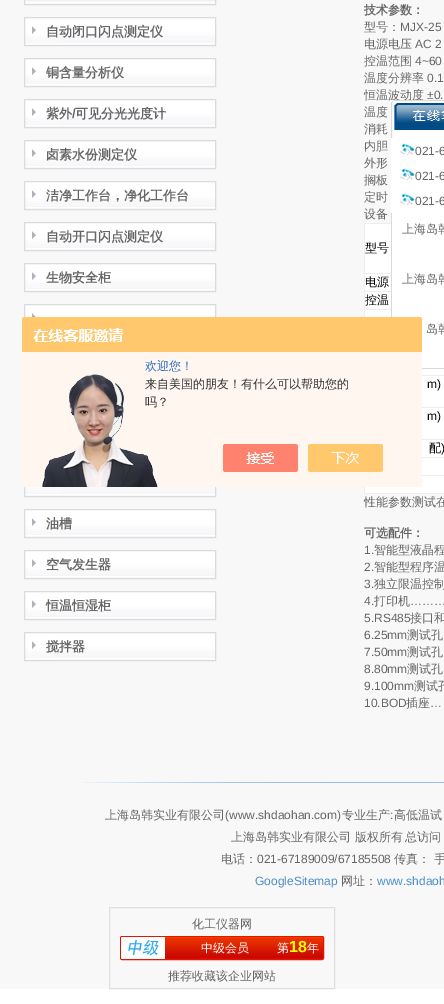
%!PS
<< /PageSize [444 1004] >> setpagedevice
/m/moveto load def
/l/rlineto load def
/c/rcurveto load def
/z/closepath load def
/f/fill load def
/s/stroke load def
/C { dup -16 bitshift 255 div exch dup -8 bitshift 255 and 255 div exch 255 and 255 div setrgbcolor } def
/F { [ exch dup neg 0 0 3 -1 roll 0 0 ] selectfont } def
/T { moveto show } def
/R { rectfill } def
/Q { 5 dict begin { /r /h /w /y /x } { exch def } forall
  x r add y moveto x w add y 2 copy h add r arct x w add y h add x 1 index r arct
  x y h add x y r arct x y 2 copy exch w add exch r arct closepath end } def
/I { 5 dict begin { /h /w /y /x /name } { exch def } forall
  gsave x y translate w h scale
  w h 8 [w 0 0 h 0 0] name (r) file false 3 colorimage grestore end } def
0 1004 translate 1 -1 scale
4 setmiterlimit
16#FFFFFF C
0 0 444 1004 R
16#F8F8F8 C
0 0 444 989 R
(1.rgb) 25 2 190 1 I
16#DADBDF C
24.5 -.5 191 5 rectstroke
(2.rgb) 25 18 190 26 I
24.5 17.5 191 28 rectstroke
/WenQuanYiZenHei-Bold 13 F
16#666666 C
(自动闭口闪点测定仪) 46 36 T
(2.rgb) 25 59 190 26 I
16#DADBDF C
24.5 58.5 191 28 rectstroke
16#666666 C
(铜含量分析仪) 46 77 T
(2.rgb) 25 100 190 26 I
16#DADBDF C
24.5 99.5 191 28 rectstroke
16#666666 C
(紫外) 46 118 T
/LiberationSans-Bold 13 F
(/) 72 118 T
/WenQuanYiZenHei-Bold 13 F
(可见分光光度计) 75 118 T
(2.rgb) 25 141 190 26 I
16#DADBDF C
24.5 140.5 191 28 rectstroke
16#666666 C
(卤素水份测定仪) 46 159 T
(2.rgb) 25 182 190 26 I
16#DADBDF C
24.5 181.5 191 28 rectstroke
16#666666 C
(洁净工作台，净化工作台) 46 200 T
(2.rgb) 25 223 190 26 I
16#DADBDF C
24.5 222.5 191 28 rectstroke
16#666666 C
(自动开口闪点测定仪) 46 241 T
(2.rgb) 25 264 190 26 I
16#DADBDF C
24.5 263.5 191 28 rectstroke
16#666666 C
(生物安全柜) 46 282 T
(3.rgb) 25 305 190 12 I
16#DADBDF C
24.5 304.5 191 28 rectstroke
(4.rgb) 25 487 190 8 I
24.5 468.5 191 28 rectstroke
(2.rgb) 25 510 190 26 I
24.5 509.5 191 28 rectstroke
16#666666 C
(油槽) 46 528 T
(2.rgb) 25 551 190 26 I
16#DADBDF C
24.5 550.5 191 28 rectstroke
16#666666 C
(空气发生器) 46 569 T
(2.rgb) 25 592 190 26 I
16#DADBDF C
24.5 591.5 191 28 rectstroke
16#666666 C
(恒温恒湿柜) 46 610 T
(2.rgb) 25 633 190 26 I
16#DADBDF C
24.5 632.5 191 28 rectstroke
16#666666 C
(搅拌器) 46 651 T
/WenQuanYiZenHei-Bold 12 F
(技术参数：) 364 14 T
/WenQuanYiZenHei-Medium 12 F
(型号：) 364 31 T
/LiberationSans-Regular 12 F
(MJX-25) 400 31 T
/WenQuanYiZenHei-Medium 12 F
(电源电压) 364 48 T
/LiberationSans-Regular 12 F
(AC 2) 415 48 T
/WenQuanYiZenHei-Medium 12 F
(控温范围) 364 65 T
/LiberationSans-Regular 12 F
(4~60) 415 65 T
/WenQuanYiZenHei-Medium 12 F
(温度分辨率) 364 82 T
/LiberationSans-Regular 12 F
(0.1) 427 82 T
/WenQuanYiZenHei-Medium 12 F
(恒温波动度) 364 99 T
/LiberationSans-Regular 12 F
(±0.) 427 99 T
/WenQuanYiZenHei-Medium 12 F
(温度) 364 116 T
(消耗) 364 133 T
(内胆) 364 150 T
(外形) 364 167 T
(搁板) 364 184 T
(定时) 364 201 T
(设备) 364 218 T
16#FFFFFF C
365 224 79 269 R
16#EEEEEE C
364 223 27 1 R
364 273 27 1 R
364 291 27 1 R
364 309 27 1 R
364 309 1 8 R
364 291 1 19 R
364 273 1 19 R
364 223 1 51 R
16#000000 C
(型号) 365 252 T
(电源) 365 286 T
(控温) 365 304 T
16#EEEEEE C
422 375 22 1 R
/LiberationSans-Regular 12 F
16#000000 C
(m\)) 427 388 T
16#EEEEEE C
422 407 22 1 R
16#000000 C
(m\)) 427 420 T
16#EEEEEE C
422 439 22 1 R
/WenQuanYiZenHei-Medium 12 F
16#000000 C
(配) 429 452 T
/LiberationSans-Regular 12 F
(\)) 441 452 T
16#EEEEEE C
422 457 22 1 R
422 475 22 1 R
364 493 80 1 R
364 487 1 7 R
/WenQuanYiZenHei-Medium 12 F
16#666666 C
(性能参数测试在) 364 506 T
/WenQuanYiZenHei-Bold 12 F
(可选配件：) 364 537 T
/LiberationSans-Regular 12 F
(1.) 364 554 T
/WenQuanYiZenHei-Medium 12 F
(智能型液晶程) 374 554 T
/LiberationSans-Regular 12 F
(2.) 364 571 T
/WenQuanYiZenHei-Medium 12 F
(智能型程序温) 374 571 T
/LiberationSans-Regular 12 F
(3.) 364 588 T
/WenQuanYiZenHei-Medium 12 F
(独立限温控制) 374 588 T
/LiberationSans-Regular 12 F
(4.) 364 605 T
/WenQuanYiZenHei-Medium 12 F
(打印机) 374 605 T
/LiberationSans-Regular 12 F
(………) 410 605 T
(5.RS485) 364 622 T
/WenQuanYiZenHei-Medium 12 F
(接口和) 410 622 T
/LiberationSans-Regular 12 F
(6.25mm) 364 639 T
/WenQuanYiZenHei-Medium 12 F
(测试孔) 407 639 T
/LiberationSans-Regular 12 F
(7.50mm) 364 656 T
/WenQuanYiZenHei-Medium 12 F
(测试孔) 407 656 T
/LiberationSans-Regular 12 F
(8.80mm) 364 673 T
/WenQuanYiZenHei-Medium 12 F
(测试孔) 407 673 T
/LiberationSans-Regular 12 F
(9.100mm) 364 690 T
/WenQuanYiZenHei-Medium 12 F
(测试孔) 414 690 T
/LiberationSans-Regular 12 F
(10.BOD) 364 707 T
/WenQuanYiZenHei-Medium 12 F
(插座) 406 707 T
/LiberationSans-Regular 12 F
(…) 430 707 T
16#FFFFFF C
391 138 53 86 R
(5.rgb) 391 100 53 38 I
(6.rgb) 400 143 15 12 I
16#666666 C
(021-6) 415 155 T
(6.rgb) 400 168 15 12 I
(021-6) 415 180 T
(6.rgb) 400 193 15 12 I
(021-6) 415 205 T
16#D9D9D9 C
391 213 1 104 R
/WenQuanYiZenHei-Medium 12 F
16#666666 C
(上海岛韩) 402 233 T
(上海岛韩) 402 283 T
(岛韩) 426 333 T
(7.rgb) 422 363 22 6 I
(8.rgb) 84 782 360 1 I
(上海岛韩实业有限公司) 105 819 T
/LiberationSans-Regular 12 F
(\(www.shdaohan.com\)) 225 819 T
/WenQuanYiZenHei-Medium 12 F
(专业生产 高低温试) 342 819 T
/LiberationSans-Regular 12 F
(:) 390 819 T
/WenQuanYiZenHei-Medium 12 F
(上海岛韩实业有限公司 版权所有) 231 841 T
(总访问) 405 841 T
(电话：) 221 863 T
/LiberationSans-Regular 12 F
(021-67189009/67185508) 257 863 T
/WenQuanYiZenHei-Medium 12 F
(传真： 手) 394 863 T
/LiberationSans-Regular 12 F
16#4C8ECA C
(GoogleSitemap) 255 885 T
/WenQuanYiZenHei-Medium 12 F
16#666666 C
(网址：) 341 885 T
/LiberationSans-Regular 12 F
16#4C8ECA C
(www.shdaoh) 377 885 T
16#DFDFDF C
109.5 907.5 225 81 rectstroke
/WenQuanYiZenHei-Medium 12 F
16#666666 C
(化工仪器网) 192 928 T
(9.rgb) 120 937 204 22 I
16#DF1700 C
120.5 936.5 203 23 1.5 Q s
16#FFFFFF C
122 937 m 43 0 l 0 22 l -43 0 l -.5 0 -1 -.5 -1 -1 c 0 -20 l 0 -.5 .5 -1 1 -1 c z f
(10.rgb) 128 940 31 16 I
(中级会员) 201 952 T
(第) 277 952 T
/LiberationSans-Bold 16 F
16#FCFF00 C
(18) 289 952 T
/WenQuanYiZenHei-Medium 12 F
16#FFFFFF C
(年) 307 952 T
16#666666 C
(推荐收藏该企业网站) 168 980 T
(11.rgb) 22 317 400 170 I
16#2E6EC6 C
(欢迎您！) 145 370 T
16#333333 C
(来自美国的朋友！有什么可以帮助您的) 145 388 T
(吗？) 145 406 T
showpage
